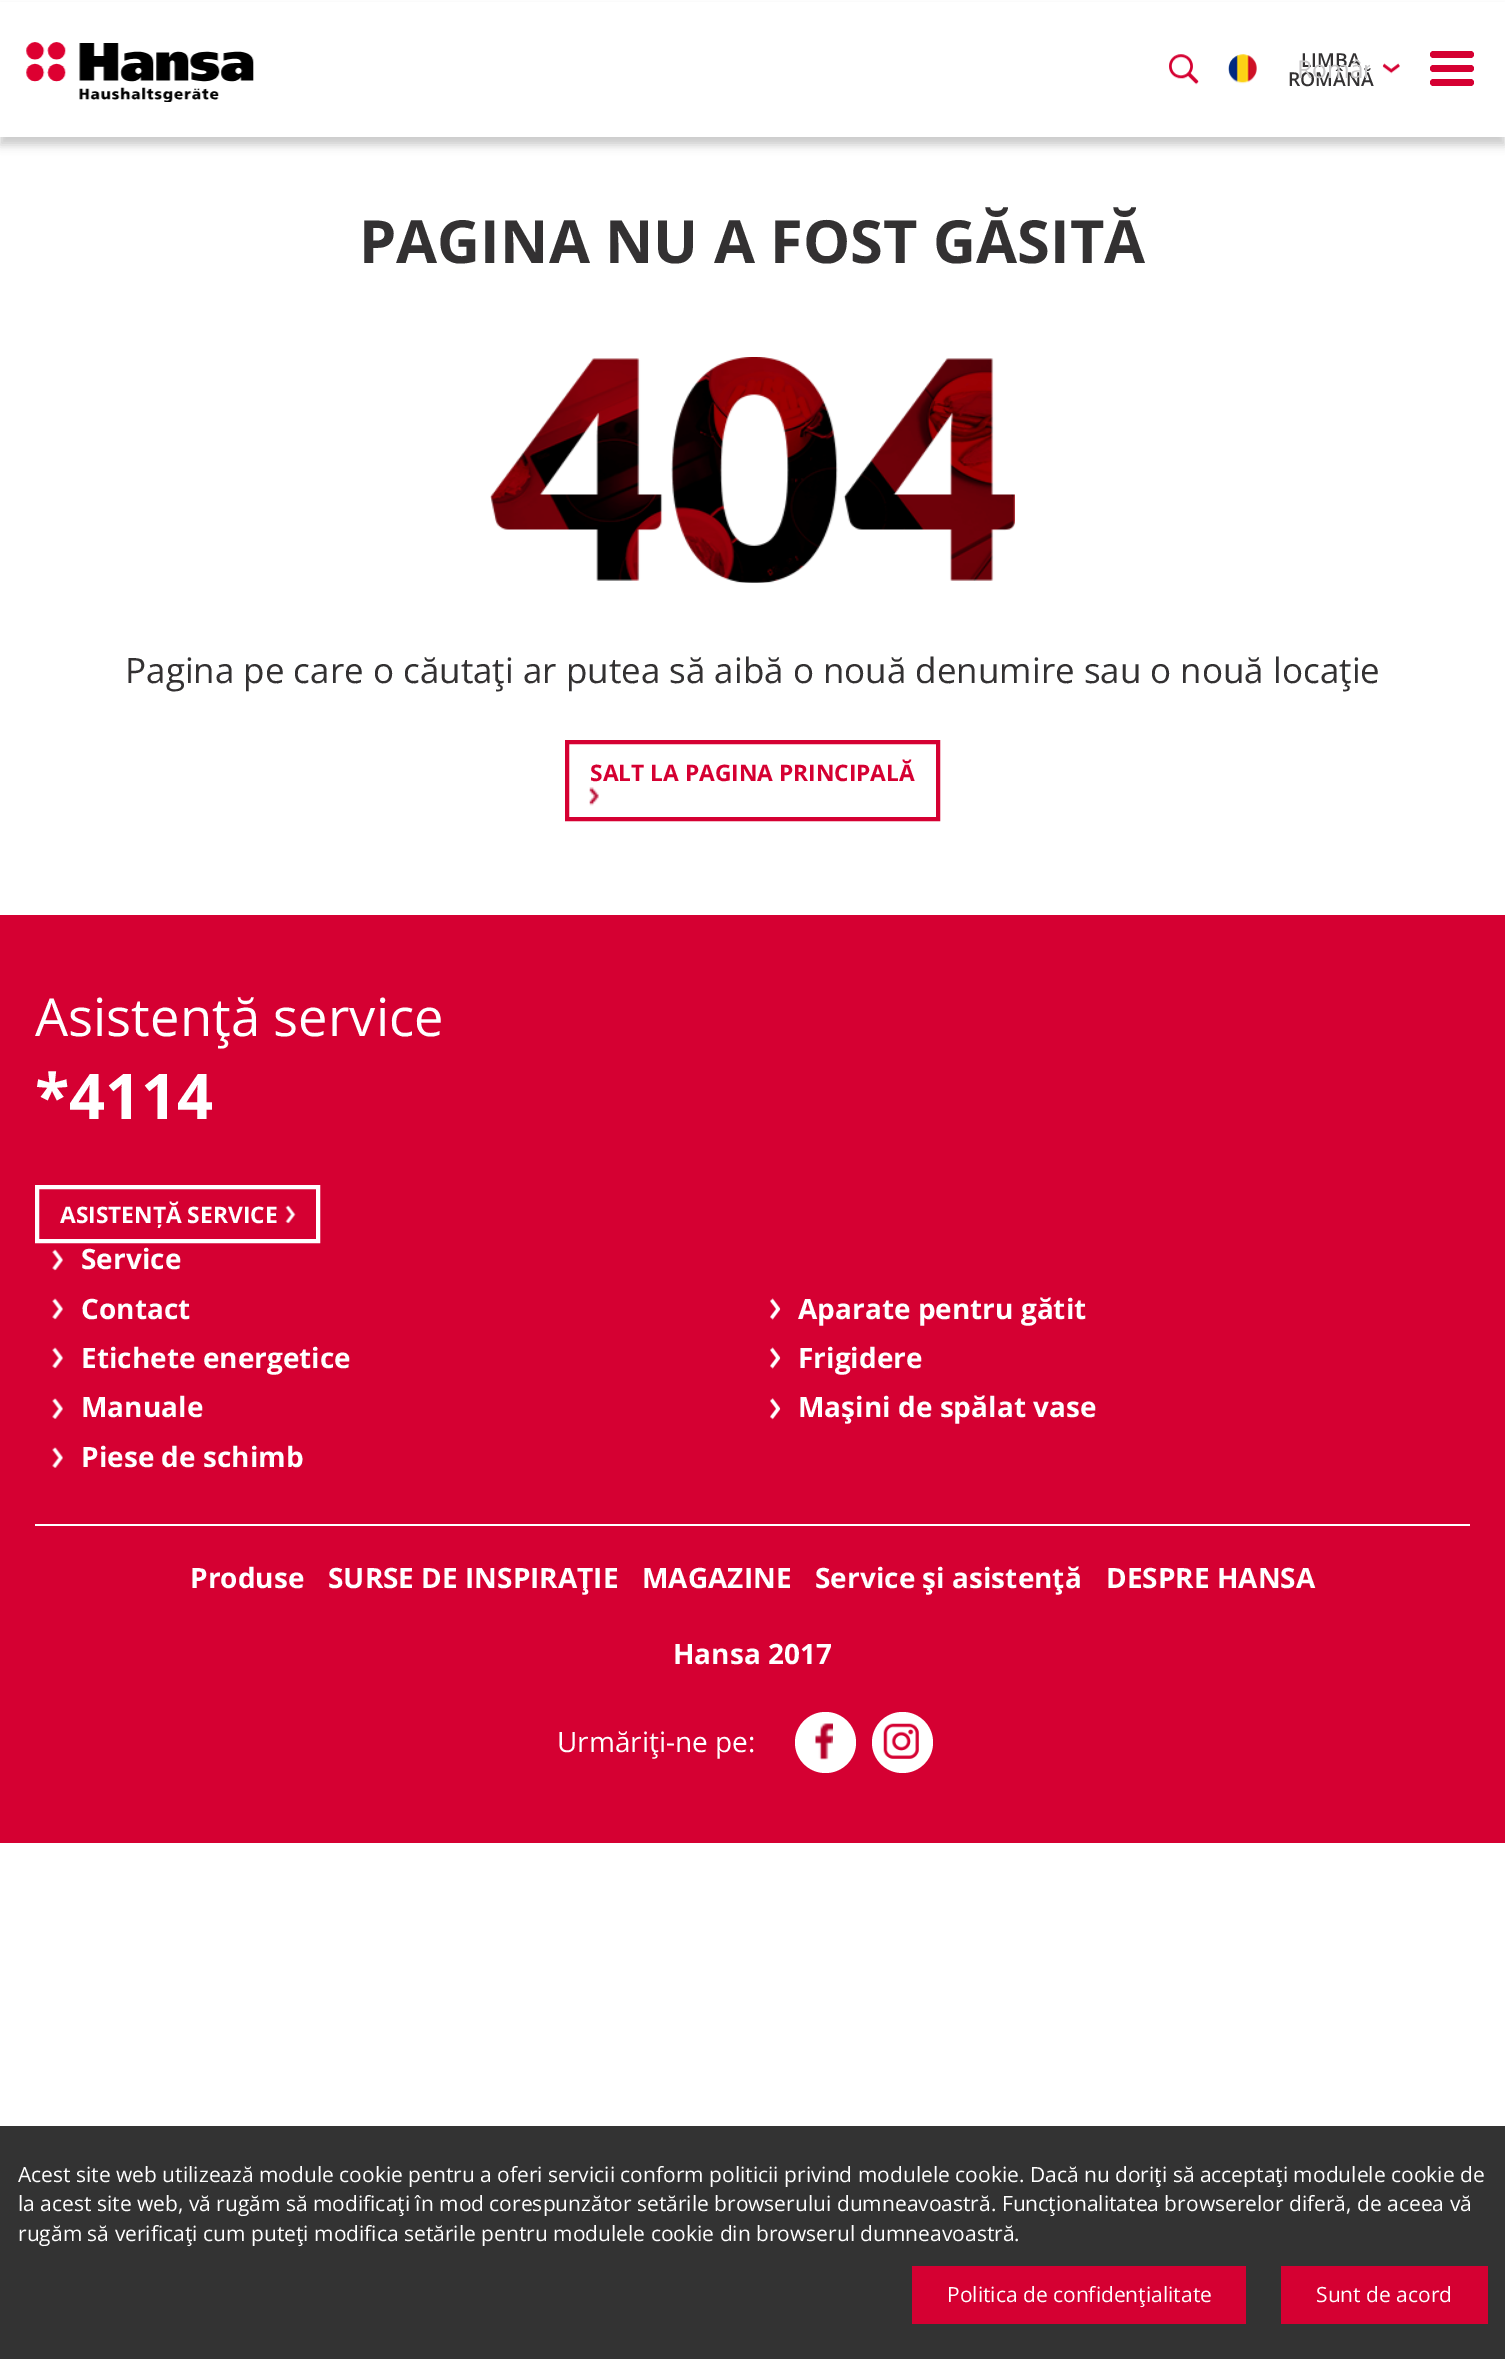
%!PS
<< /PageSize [1505 2359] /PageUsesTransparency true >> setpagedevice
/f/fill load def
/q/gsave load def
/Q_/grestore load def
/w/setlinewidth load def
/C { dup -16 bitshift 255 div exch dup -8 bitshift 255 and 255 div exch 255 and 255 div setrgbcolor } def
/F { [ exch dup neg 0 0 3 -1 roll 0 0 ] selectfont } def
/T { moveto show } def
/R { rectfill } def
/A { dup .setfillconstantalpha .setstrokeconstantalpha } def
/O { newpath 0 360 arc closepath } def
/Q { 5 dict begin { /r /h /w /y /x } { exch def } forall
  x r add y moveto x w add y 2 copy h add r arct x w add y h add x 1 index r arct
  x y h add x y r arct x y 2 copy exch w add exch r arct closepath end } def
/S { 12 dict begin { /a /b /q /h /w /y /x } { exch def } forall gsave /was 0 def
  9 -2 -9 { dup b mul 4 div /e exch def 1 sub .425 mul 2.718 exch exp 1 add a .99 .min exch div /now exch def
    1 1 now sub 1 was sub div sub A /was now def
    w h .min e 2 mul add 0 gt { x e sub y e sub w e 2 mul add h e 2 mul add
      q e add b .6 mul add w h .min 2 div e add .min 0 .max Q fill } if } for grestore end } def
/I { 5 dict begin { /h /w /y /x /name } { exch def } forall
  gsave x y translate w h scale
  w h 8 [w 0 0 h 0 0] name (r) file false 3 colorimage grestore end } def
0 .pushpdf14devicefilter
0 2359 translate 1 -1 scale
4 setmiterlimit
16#FFFFFF C
0 0 1505 2359 R
16#000001 C
0 9 1505 136 0 4.5 .2 S
16#FFFFFF C
0 2 1505 135 R
(1.rgb) 26 42 228 60 I
(2.rgb) 1169 54 30 31 I
(3.rgb) 1228 54 29 30 I
/OpenSans-SemiBold 19.25 F
16#333132 C
(LIMBA) 1301 67 T
(ROMÂNĂ) 1288 86 T
(4.rgb) 1382 63 18 11 I
q
1297 51 73 37 rectclip
/OpenSans-Regular 24.5 F
16#C8C7C8 C
(Român) 1297 78 T
Q_
16#D50032 C
1430 65 44 7 3.5 Q f
1430 51 44 7 3.5 Q f
1430 79 44 7 3.5 Q f
/OpenSans-Bold 59.5 F
16#333132 C
(PAGINA NU A FOST GĂSITĂ) 359 263 T
(5.rgb) 490 357 525 226 I
/OpenSans-Regular 35 F
(Pagina pe care o căutaţi ar putea să aibă o nouă denumire sau o nouă locaţie) 125 683 T
16#D50032 C
4 w
567 742 371 77 rectstroke
/OpenSans-Bold 22.75 F
(SALT LA PAGINA PRINCIPALĂ) 590 781 T
(6.rgb) 589 787 10 19 I
0 915 1505 928 R
/OpenSans-Regular 52.5 F
16#FFFFFF C
(Asistenţă service) 35 1036 T
/OpenSans-Bold 63 F
(*4114) 35 1119 T
37 1187 281 54 rectstroke
/OpenSans-Bold 22.75 F
(ASISTENȚĂ SERVICE) 60 1223 T
(7.rgb) 285 1205 11 19 I
(8.rgb) 52 1249 12 22 I
/OpenSans-Bold 28 F
(Service) 81 1269 T
(8.rgb) 52 1298 12 22 I
(Contact) 81 1319 T
(8.rgb) 52 1347 12 22 I
(Etichete energetice) 81 1368 T
(9.rgb) 52 1398 11 21 I
(Manuale) 81 1417 T
(9.rgb) 52 1447 11 21 I
(Piese de schimb) 81 1467 T
(10.rgb) 770 1298 11 22 I
(Aparate pentru gătit) 798 1319 T
(10.rgb) 770 1347 11 22 I
(Frigidere) 798 1368 T
(11.rgb) 770 1398 11 22 I
(Maşini de spălat vase) 798 1417 T
35 1524 1435 2 R
(Produse) 190 1588 T
(SURSE DE INSPIRAŢIE) 328 1588 T
(MAGAZINE) 642 1588 T
(Service şi asistenţă) 815 1588 T
(DESPRE HANSA) 1106 1588 T
(Hansa 2017) 673 1664 T
/OpenSans-Regular 28 F
(Urmăriţi-ne pe:) 557 1752 T
825.5 1742.5 30.5 O f
(12.rgb) 815 1723 18 37 I
902.5 1742.5 30.5 O f
(13.rgb) 883 1723 36 36 I
16#333333 C
0 2126 1505 233 R
/OpenSans-Regular 21 F
16#FFFFFF C
(Acest site web utilizează module cookie pentru a oferi servicii conform politicii privind modulele cookie. Dacă nu doriţi să acceptaţi modulele cookie de) 18 2182 T
(la acest site web, vă rugăm să modificaţi în mod corespunzător setările browserului dumneavoastră. Funcţionalitatea browserelor diferă, de aceea vă) 18 2211 T
(rugăm să verificaţi cum puteţi modifica setările pentru modulele cookie din browserul dumneavoastră.) 18 2241 T
16#D50032 C
912 2266 334 58 R
16#FFFFFF C
(Politica de confidenţialitate) 947 2302 T
16#D50032 C
1281 2266 207 58 R
16#FFFFFF C
(Sunt de acord) 1316 2302 T
.poppdf14devicefilter showpage
